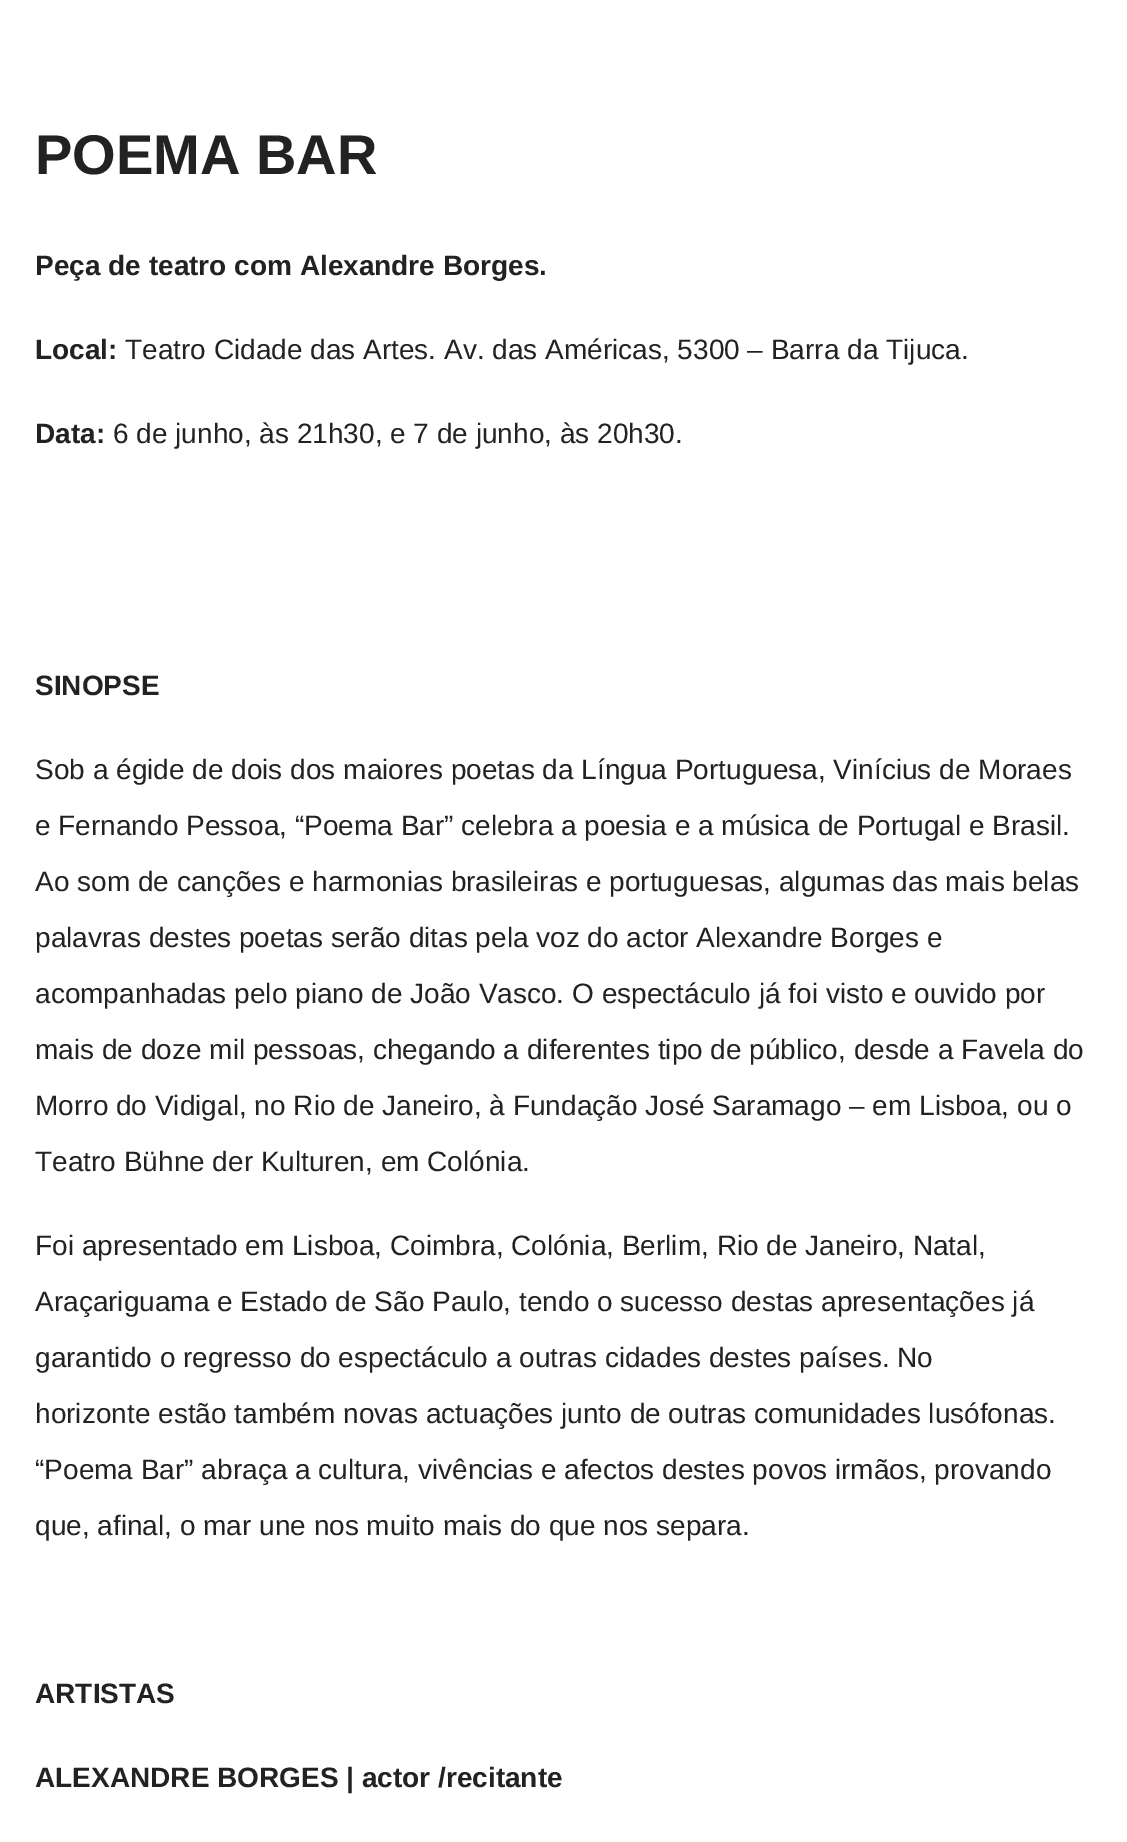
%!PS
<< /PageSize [1127 1842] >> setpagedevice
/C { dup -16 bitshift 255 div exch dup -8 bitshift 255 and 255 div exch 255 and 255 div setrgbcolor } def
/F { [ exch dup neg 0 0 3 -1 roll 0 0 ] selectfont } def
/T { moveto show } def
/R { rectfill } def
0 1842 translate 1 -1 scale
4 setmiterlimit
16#FFFFFF C
0 0 1127 1842 R
/LiberationSans-Bold 56 F
16#222222 C
(POEMA BAR) 35 174 T
/LiberationSans-Bold 28 F
(Peça de teatro com Alexandre Borges.) 35 275 T
(Local:) 35 359 T
/LiberationSans-Regular 28 F
(Teatro Cidade das Artes. Av. das Américas, 5300 – Barra da Tijuca.) 125 359 T
/LiberationSans-Bold 28 F
(Data:) 35 443 T
/LiberationSans-Regular 28 F
(6 de junho, às 21h30, e 7 de junho, às 20h30.) 113 443 T
/LiberationSans-Bold 28 F
(SINOPSE) 35 695 T
/LiberationSans-Regular 28 F
(Sob a égide de dois dos maiores poetas da Língua Portuguesa, Vinícius de Moraes) 35 779 T
(e Fernando Pessoa, “Poema Bar” celebra a poesia e a música de Portugal e Brasil.) 35 835 T
(Ao som de canções e harmonias brasileiras e portuguesas, algumas das mais belas) 35 891 T
(palavras destes poetas serão ditas pela voz do actor Alexandre Borges e) 35 947 T
(acompanhadas pelo piano de João Vasco. O espectáculo já foi visto e ouvido por) 35 1003 T
(mais de doze mil pessoas, chegando a diferentes tipo de público, desde a Favela do) 35 1059 T
(Morro do Vidigal, no Rio de Janeiro, à Fundação José Saramago – em Lisboa, ou o) 35 1115 T
(Teatro Bühne der Kulturen, em Colónia.) 35 1171 T
(Foi apresentado em Lisboa, Coimbra, Colónia, Berlim, Rio de Janeiro, Natal,) 35 1255 T
(Araçariguama e Estado de São Paulo, tendo o sucesso destas apresentações já) 35 1311 T
(garantido o regresso do espectáculo a outras cidades destes países. No) 35 1367 T
(horizonte estão também novas actuações junto de outras comunidades lusófonas.) 35 1423 T
(“Poema Bar” abraça a cultura, vivências e afectos destes povos irmãos, provando) 35 1479 T
(que, afinal, o mar une nos muito mais do que nos separa.) 35 1535 T
/LiberationSans-Bold 28 F
(ARTISTAS) 35 1703 T
(ALEXANDRE BORGES | actor /recitante) 35 1787 T
showpage
